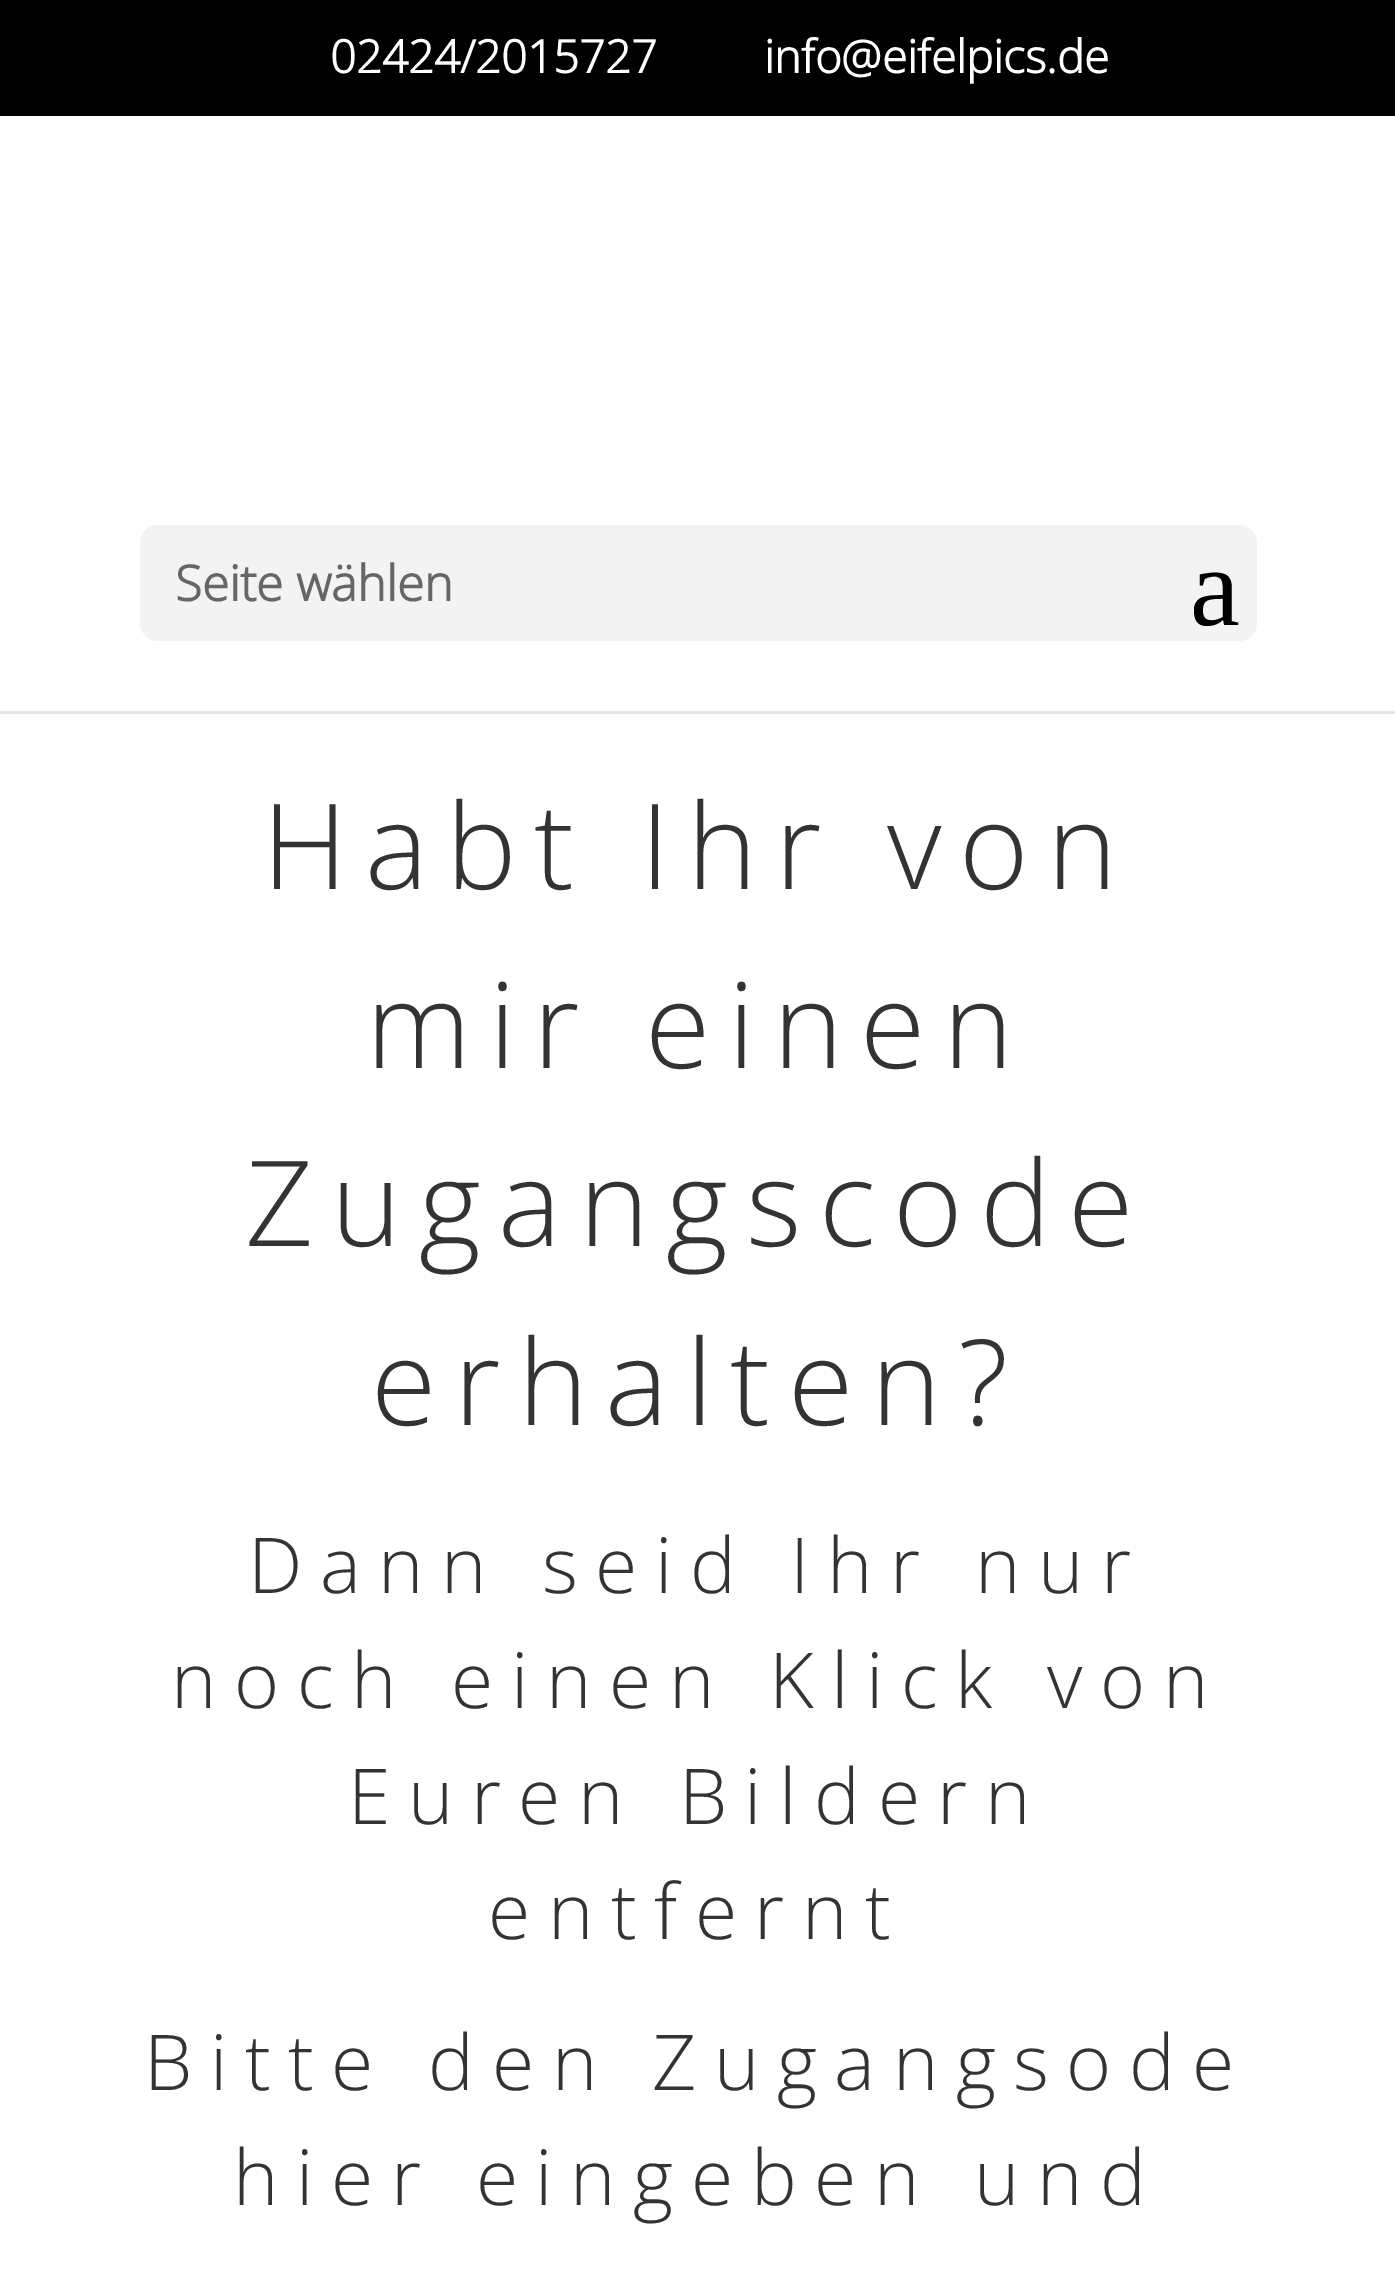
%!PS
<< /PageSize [1395 2291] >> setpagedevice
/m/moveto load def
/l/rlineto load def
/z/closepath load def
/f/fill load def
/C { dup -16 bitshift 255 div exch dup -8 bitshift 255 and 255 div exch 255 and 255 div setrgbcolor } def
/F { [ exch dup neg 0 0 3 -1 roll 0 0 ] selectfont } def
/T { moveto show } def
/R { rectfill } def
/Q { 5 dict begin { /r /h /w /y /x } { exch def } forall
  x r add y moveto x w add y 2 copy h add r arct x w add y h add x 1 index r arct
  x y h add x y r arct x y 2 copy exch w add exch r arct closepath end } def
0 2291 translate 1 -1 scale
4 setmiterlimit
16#FFFFFF C
0 0 1395 2291 R
16#000000 C
0 0 1395 116 R
/OpenSans-Bold 45.5 F
16#FFFFFF C
(02424/2015727) 330 73 T
(info@eifelpics.de) 764 73 T
16#E6E6E6 C
0 710 m 0 4 l 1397 0 l 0 -507 l -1 0 l 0 503 l z f
16#FFFFFF C
0 710 1395 1 R
16#F3F3F3 C
140 525 1117 116 18 Q f
/OpenSans-Bold 49 F
16#666666 C
(Seite wählen) 175 601 T
/LiberationSerif-Regular 112 F
16#000000 C
(a) 1190 625 T
/OpenSans-Light 119 F
16#333333 C
262 889 m 17.5 0 (Habt Ihr von) ashow
366 1068 m 17.5 0 (mir einen) ashow
245 1246 m 17.5 0 (Zugangscode) ashow
371 1425 m 17.5 0 (erhalten?) ashow
/OpenSans-Light 77 F
248 1593 m 17.5 0 (Dann seid Ihr nur) ashow
171 1708 m 17.5 0 (noch einen Klick von) ashow
348 1824 m 17.5 0 (Euren Bildern) ashow
488 1939 m 17.5 0 (entfernt) ashow
144 2090 m 17.5 0 (Bitte den Zugangsode) ashow
233 2205 m 17.5 0 (hier eingeben und) ashow
showpage
